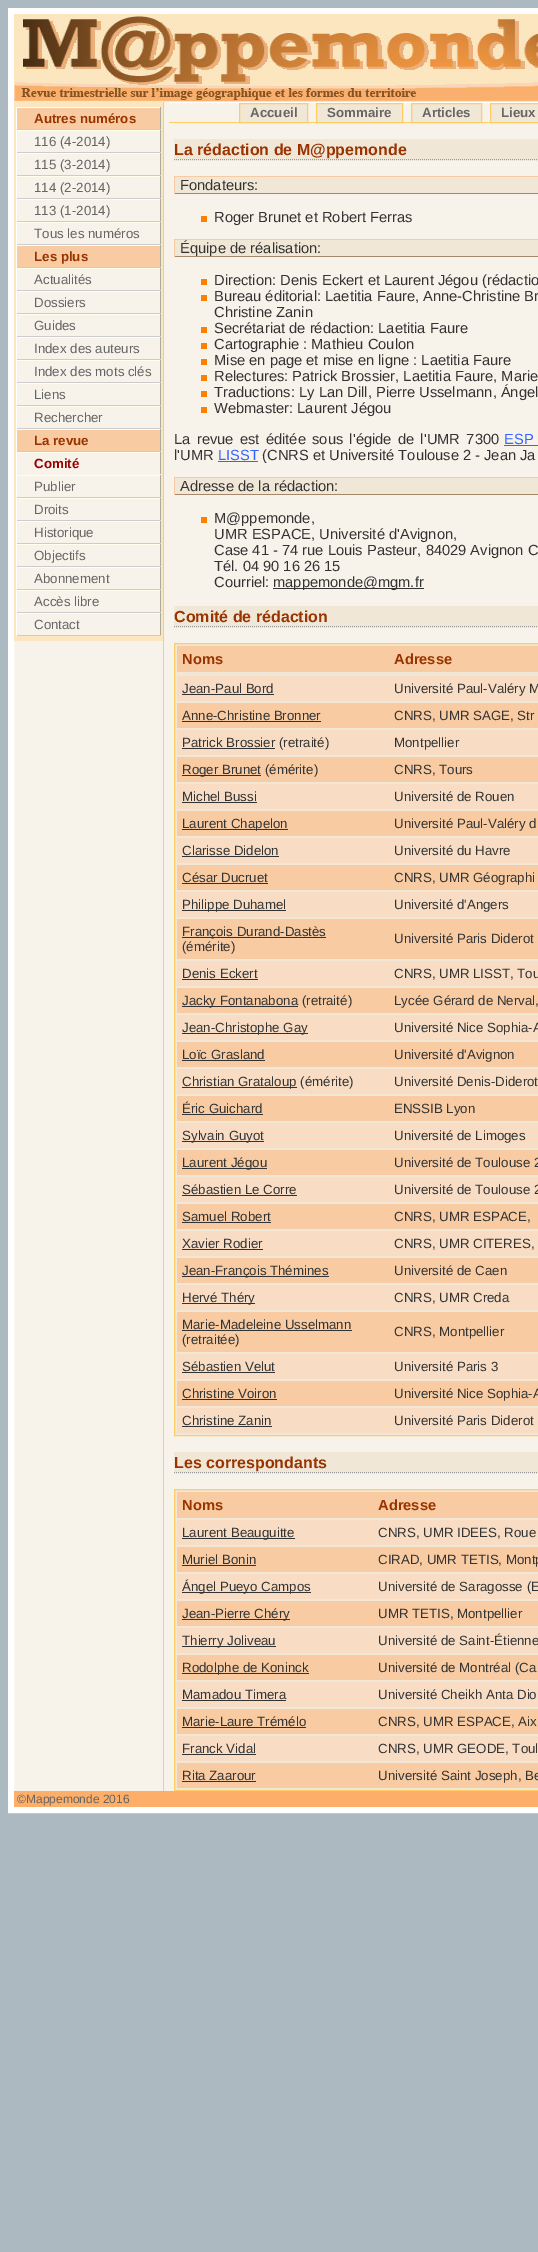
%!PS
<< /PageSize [538 2252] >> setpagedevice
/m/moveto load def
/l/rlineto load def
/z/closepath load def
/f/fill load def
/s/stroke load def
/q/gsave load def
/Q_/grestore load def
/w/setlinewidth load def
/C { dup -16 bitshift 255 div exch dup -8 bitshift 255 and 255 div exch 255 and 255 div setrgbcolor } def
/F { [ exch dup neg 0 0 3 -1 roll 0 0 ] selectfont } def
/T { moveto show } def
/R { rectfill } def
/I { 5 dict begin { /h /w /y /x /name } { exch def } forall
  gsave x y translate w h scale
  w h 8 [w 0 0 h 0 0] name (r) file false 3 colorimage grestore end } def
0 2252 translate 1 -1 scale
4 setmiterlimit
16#ACB9C1 C
0 0 538 2252 R
16#F7F2EA C
14 102 524 1689 R
16#FFFFFF C
6 w
11 11 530 1799 rectstroke
(1.rgb) 14 14 524 88 I
16#FBE6BF C
14 102 149 539 R
16#F8CBA2 C
17 108 143 21 R
16#FFFFEE C
16 107 145 1 R
16#AAAB9C C
160 107 1 23 R
16#CCCCCC C
16 129 145 1 R
16#FFFFFF C
16 107 1 23 R
/LiberationSans-Bold 13.3 F
16#993300 C
(Autres numéros) 34 123 T
16#F7F2EA C
17 131 143 21 R
16#FFFFEE C
16 130 145 1 R
16#AAAB9C C
160 130 1 23 R
16#CCCCCC C
16 152 145 1 R
16#FFFFFF C
16 130 1 23 R
/LiberationSans-Regular 13.3 F
16#666666 C
(116 \(4-2014\)) 34 146 T
16#F7F2EA C
17 154 143 21 R
16#FFFFEE C
16 153 145 1 R
16#AAAB9C C
160 153 1 23 R
16#CCCCCC C
16 175 145 1 R
16#FFFFFF C
16 153 1 23 R
16#666666 C
(115 \(3-2014\)) 34 169 T
16#F7F2EA C
17 177 143 21 R
16#FFFFEE C
16 176 145 1 R
16#AAAB9C C
160 176 1 23 R
16#CCCCCC C
16 198 145 1 R
16#FFFFFF C
16 176 1 23 R
16#666666 C
(114 \(2-2014\)) 34 192 T
16#F7F2EA C
17 200 143 21 R
16#FFFFEE C
16 199 145 1 R
16#AAAB9C C
160 199 1 23 R
16#CCCCCC C
16 221 145 1 R
16#FFFFFF C
16 199 1 23 R
16#666666 C
(113 \(1-2014\)) 34 215 T
16#F7F2EA C
17 223 143 21 R
16#FFFFEE C
16 222 145 1 R
16#AAAB9C C
160 222 1 23 R
16#CCCCCC C
16 244 145 1 R
16#FFFFFF C
16 222 1 23 R
16#666666 C
(Tous les numéros) 34 238 T
16#F8CBA2 C
17 246 143 21 R
16#FFFFEE C
16 245 145 1 R
16#AAAB9C C
160 245 1 23 R
16#CCCCCC C
16 267 145 1 R
16#FFFFFF C
16 245 1 23 R
/LiberationSans-Bold 13.3 F
16#993300 C
(Les plus) 34 261 T
16#F7F2EA C
17 269 143 21 R
16#FFFFEE C
16 268 145 1 R
16#AAAB9C C
160 268 1 23 R
16#CCCCCC C
16 290 145 1 R
16#FFFFFF C
16 268 1 23 R
/LiberationSans-Regular 13.3 F
16#666666 C
(Actualités) 34 284 T
16#F7F2EA C
17 292 143 21 R
16#FFFFEE C
16 291 145 1 R
16#AAAB9C C
160 291 1 23 R
16#CCCCCC C
16 313 145 1 R
16#FFFFFF C
16 291 1 23 R
16#666666 C
(Dossiers) 34 307 T
16#F7F2EA C
17 315 143 21 R
16#FFFFEE C
16 314 145 1 R
16#AAAB9C C
160 314 1 23 R
16#CCCCCC C
16 336 145 1 R
16#FFFFFF C
16 314 1 23 R
16#666666 C
(Guides) 34 330 T
16#F7F2EA C
17 338 143 21 R
16#FFFFEE C
16 337 145 1 R
16#AAAB9C C
160 337 1 23 R
16#CCCCCC C
16 359 145 1 R
16#FFFFFF C
16 337 1 23 R
16#666666 C
(Index des auteurs) 34 353 T
16#F7F2EA C
17 361 143 21 R
16#FFFFEE C
16 360 145 1 R
16#AAAB9C C
160 360 1 23 R
16#CCCCCC C
16 382 145 1 R
16#FFFFFF C
16 360 1 23 R
16#666666 C
(Index des mots clés) 34 376 T
16#F7F2EA C
17 384 143 21 R
16#FFFFEE C
16 383 145 1 R
16#AAAB9C C
160 383 1 23 R
16#CCCCCC C
16 405 145 1 R
16#FFFFFF C
16 383 1 23 R
16#666666 C
(Liens) 34 399 T
16#F7F2EA C
17 407 143 21 R
16#FFFFEE C
16 406 145 1 R
16#AAAB9C C
160 406 1 23 R
16#CCCCCC C
16 428 145 1 R
16#FFFFFF C
16 406 1 23 R
16#666666 C
(Rechercher) 34 422 T
16#F8CBA2 C
17 430 143 21 R
16#FFFFEE C
16 429 145 1 R
16#AAAB9C C
160 429 1 23 R
16#CCCCCC C
16 451 145 1 R
16#FFFFFF C
16 429 1 23 R
/LiberationSans-Bold 13.3 F
16#993300 C
(La revue) 34 445 T
16#F7F2EA C
17 453 143 21 R
16#FFFFEE C
16 452 145 1 R
16#AAAB9C C
160 452 1 23 R
16#F7F2EA C
16 474 145 1 R
16#FFFFFF C
16 452 1 23 R
16#990000 C
(Comité) 34 468 T
16#F7F2EA C
17 476 143 21 R
16#FFFFEE C
16 475 145 1 R
16#AAAB9C C
160 475 1 23 R
16#CCCCCC C
16 497 145 1 R
16#FFFFFF C
16 475 1 23 R
/LiberationSans-Regular 13.3 F
16#666666 C
(Publier) 34 491 T
16#F7F2EA C
17 499 143 21 R
16#FFFFEE C
16 498 145 1 R
16#AAAB9C C
160 498 1 23 R
16#CCCCCC C
16 520 145 1 R
16#FFFFFF C
16 498 1 23 R
16#666666 C
(Droits) 34 514 T
16#F7F2EA C
17 522 143 21 R
16#FFFFEE C
16 521 145 1 R
16#AAAB9C C
160 521 1 23 R
16#CCCCCC C
16 543 145 1 R
16#FFFFFF C
16 521 1 23 R
16#666666 C
(Historique) 34 537 T
16#F7F2EA C
17 545 143 21 R
16#FFFFEE C
16 544 145 1 R
16#AAAB9C C
160 544 1 23 R
16#CCCCCC C
16 566 145 1 R
16#FFFFFF C
16 544 1 23 R
16#666666 C
(Objectifs) 34 560 T
16#F7F2EA C
17 568 143 21 R
16#FFFFEE C
16 567 145 1 R
16#AAAB9C C
160 567 1 23 R
16#CCCCCC C
16 589 145 1 R
16#FFFFFF C
16 567 1 23 R
16#666666 C
(Abonnement) 34 583 T
16#F7F2EA C
17 591 143 21 R
16#FFFFEE C
16 590 145 1 R
16#AAAB9C C
160 590 1 23 R
16#CCCCCC C
16 612 145 1 R
16#FFFFFF C
16 590 1 23 R
16#666666 C
(Accès libre) 34 606 T
16#F7F2EA C
17 614 143 21 R
16#FFFFEE C
16 613 145 1 R
16#AAAB9C C
160 613 1 23 R
16#CCCCCC C
16 635 145 1 R
16#FFFFFF C
16 613 1 23 R
16#666666 C
(Contact) 34 629 T
16#FFFFFF C
169 102 369 1 R
16#FFCC66 C
169 122 321 1 R
16#F0E7D7 C
239.5 103.5 m 68 0 l 0 19 l -68 0 l z q f Q_
16#FFCC66 C
1 w
s
/LiberationSans-Bold 13.3 F
16#666666 C
(Accueil) 250 117 T
16#F0E7D7 C
316.5 103.5 m 86 0 l 0 19 l -86 0 l z q f Q_
16#FFCC66 C
s
16#666666 C
(Sommaire) 327 117 T
16#F0E7D7 C
411.5 103.5 m 70 0 l 0 19 l -70 0 l z q f Q_
16#FFCC66 C
s
16#666666 C
(Articles) 422 117 T
16#F0E7D7 C
490.5 103.5 m 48 0 l 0 19 l -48 0 l z q f Q_
16#FFCC66 C
s
16#666666 C
(Lieux) 501 117 T
16#FFCC66 C
163 102 1 1689 R
16#F0E7D7 C
174 139 364 21 R
16#999999 C
[1 1] 0 setdash
174 159.5 m 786 0 l s
/LiberationSans-Bold 16 F
16#993300 C
(La rédaction de M@ppemonde) 174 155 T
16#F0E7D7 C
175 177 363 16 R
16#F8CBA2 C
174 176 364 1 R
16#A5876C C
174 193 364 1 R
16#F8CBA2 C
174 176 1 18 R
/LiberationSans-Regular 14.7 F
16#333333 C
(Fondateurs:) 180 190 T
16#FF8000 C
201 216 6 6 R
16#333333 C
(Roger Brunet et Robert Ferras) 214 222 T
16#F0E7D7 C
175 240 363 16 R
16#F8CBA2 C
174 239 364 1 R
16#A5876C C
174 256 364 1 R
16#F8CBA2 C
174 239 1 18 R
16#333333 C
(Équipe de réalisation:) 180 253 T
16#FF8000 C
201 279 6 6 R
16#333333 C
(Direction: Denis Eckert et Laurent Jégou \(rédactio) 214 285 T
16#FF8000 C
201 295 6 6 R
16#333333 C
(Bureau éditorial: Laetitia Faure, Anne-Christine Br) 214 301 T
(Christine Zanin) 214 317 T
16#FF8000 C
201 327 6 6 R
16#333333 C
(Secrétariat de rédaction: Laetitia Faure) 214 333 T
16#FF8000 C
201 343 6 6 R
16#333333 C
(Cartographie : Mathieu Coulon) 214 349 T
16#FF8000 C
201 359 6 6 R
16#333333 C
(Mise en page et mise en ligne : Laetitia Faure) 214 365 T
16#FF8000 C
201 375 6 6 R
16#333333 C
(Relectures: Patrick Brossier, Laetitia Faure, Marie) 214 381 T
16#FF8000 C
201 391 6 6 R
16#333333 C
(Traductions: Ly Lan Dill, Pierre Usselmann, Ángel) 214 397 T
16#FF8000 C
201 407 6 6 R
16#333333 C
(Webmaster: Laurent Jégou) 214 413 T
174 444 m 2.25 0 32 (La revue est éditée sous l'égide de l'UMR 7300) widthshow
16#3366FF C
(ESP) 504 444 T
504 445 34 1 R
16#333333 C
(l'UMR) 174 460 T
16#3366FF C
(LISST) 218 460 T
218 461 40 1 R
16#333333 C
(\(CNRS et Université Toulouse 2 - Jean Ja) 262 460 T
16#F0E7D7 C
175 478 363 16 R
16#F8CBA2 C
174 477 364 1 R
16#A5876C C
174 494 364 1 R
16#F8CBA2 C
174 477 1 18 R
16#333333 C
(Adresse de la rédaction:) 180 491 T
16#FF8000 C
201 517 6 6 R
16#333333 C
(M@ppemonde,) 214 523 T
(UMR ESPACE, Université d'Avignon,) 214 539 T
(Case 41 - 74 rue Louis Pasteur, 84029 Avignon C) 214 555 T
(Tél. 04 90 16 26 15) 214 571 T
(Courriel:) 214 587 T
273 588 151 1 R
(mappemonde@mgm.fr) 273 587 T
16#F0E7D7 C
174 606 364 21 R
16#999999 C
174 626.5 m 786 0 l s
/LiberationSans-Bold 16 F
16#993300 C
(Comité de rédaction) 174 622 T
16#F0E7D7 C
174.5 643.5 m 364 0 l 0 792 l -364 0 l z q f Q_
16#FFCC66 C
[] 0 setdash
s
16#F8CBA2 C
177 646 361 26 R
/LiberationSans-Bold 14.7 F
16#993300 C
(Noms) 182 664 T
(Adresse) 394 664 T
16#F8DDC4 C
177 676 361 25 R
/LiberationSans-Regular 13.3 F
16#333333 C
(Jean-Paul Bord) 182 693 T
182 694 92 1 R
(Université Paul-Valéry M) 394 693 T
16#F8CBA2 C
177 703 361 25 R
16#333333 C
(Anne-Christine Bronner) 182 720 T
182 721 139 1 R
(CNRS, UMR SAGE, Str) 394 720 T
16#F8DDC4 C
177 730 361 25 R
16#333333 C
182 748 93 1 R
(Patrick Brossier \(retraité\)) 182 747 T
(Montpellier) 394 747 T
16#F8CBA2 C
177 757 361 25 R
16#333333 C
182 775 79 1 R
(Roger Brunet \(émérite\)) 182 774 T
(CNRS, Tours) 394 774 T
16#F8DDC4 C
177 784 361 25 R
16#333333 C
(Michel Bussi) 182 801 T
182 802 75 1 R
(Université de Rouen) 394 801 T
16#F8CBA2 C
177 811 361 25 R
16#333333 C
182 829 106 1 R
(Laurent Chapelon) 182 828 T
(Université Paul-Valéry d) 394 828 T
16#F8DDC4 C
177 838 361 25 R
16#333333 C
(Clarisse Didelon) 182 855 T
182 856 97 1 R
(Université du Havre) 394 855 T
16#F8CBA2 C
177 865 361 25 R
16#333333 C
(César Ducruet) 182 882 T
182 883 86 1 R
(CNRS, UMR Géographi) 394 882 T
16#F8DDC4 C
177 892 361 25 R
16#333333 C
182 910 104 1 R
(Philippe Duhamel) 182 909 T
(Université d'Angers) 394 909 T
16#F8CBA2 C
177 919 361 40 R
16#333333 C
182 937 144 1 R
(François Durand-Dastès) 182 936 T
(\(émérite\)) 182 951 T
(Université Paris Diderot) 394 943 T
16#F8DDC4 C
177 961 361 25 R
16#333333 C
(Denis Eckert) 182 978 T
182 979 76 1 R
(CNRS, UMR LISST, Tou) 394 978 T
16#F8CBA2 C
177 988 361 25 R
16#333333 C
182 1006 116 1 R
(Jacky Fontanabona \(retraité\)) 182 1005 T
(Lycée Gérard de Nerval,) 394 1005 T
16#F8DDC4 C
177 1015 361 25 R
16#333333 C
182 1033 126 1 R
(Jean-Christophe Gay) 182 1032 T
(Université Nice Sophia-A) 394 1032 T
16#F8CBA2 C
177 1042 361 25 R
16#333333 C
(Loïc Grasland) 182 1059 T
182 1060 83 1 R
(Université d'Avignon) 394 1059 T
16#F8DDC4 C
177 1069 361 25 R
16#333333 C
182 1087 115 1 R
(Christian Grataloup \(émérite\)) 182 1086 T
(Université Denis-Diderot) 394 1086 T
16#F8CBA2 C
177 1096 361 25 R
16#333333 C
(Éric Guichard) 182 1113 T
182 1114 81 1 R
(ENSSIB Lyon) 394 1113 T
16#F8DDC4 C
177 1123 361 25 R
16#333333 C
182 1141 82 1 R
(Sylvain Guyot) 182 1140 T
(Université de Limoges) 394 1140 T
16#F8CBA2 C
177 1150 361 25 R
16#333333 C
182 1168 85 1 R
(Laurent Jégou) 182 1167 T
(Université de Toulouse 2) 394 1167 T
16#F8DDC4 C
177 1177 361 25 R
16#333333 C
(Sébastien Le Corre) 182 1194 T
182 1195 115 1 R
(Université de Toulouse 2) 394 1194 T
16#F8CBA2 C
177 1204 361 25 R
16#333333 C
(Samuel Robert) 182 1221 T
182 1222 89 1 R
(CNRS, UMR ESPACE,) 394 1221 T
16#F8DDC4 C
177 1231 361 25 R
16#333333 C
(Xavier Rodier) 182 1248 T
182 1249 81 1 R
(CNRS, UMR CITERES,) 394 1248 T
16#F8CBA2 C
177 1258 361 25 R
16#333333 C
182 1276 147 1 R
(Jean-François Thémines) 182 1275 T
(Université de Caen) 394 1275 T
16#F8DDC4 C
177 1285 361 25 R
16#333333 C
182 1303 73 1 R
(Hervé Théry) 182 1302 T
(CNRS, UMR Creda) 394 1302 T
16#F8CBA2 C
177 1312 361 40 R
16#333333 C
(Marie-Madeleine Usselmann) 182 1329 T
182 1330 170 1 R
(\(retraitée\)) 182 1344 T
(CNRS, Montpellier) 394 1336 T
16#F8DDC4 C
177 1354 361 25 R
16#333333 C
(Sébastien Velut) 182 1371 T
182 1372 93 1 R
(Université Paris 3) 394 1371 T
16#F8CBA2 C
177 1381 361 25 R
16#333333 C
(Christine Voiron) 182 1398 T
182 1399 95 1 R
(Université Nice Sophia-A) 394 1398 T
16#F8DDC4 C
177 1408 361 25 R
16#333333 C
(Christine Zanin) 182 1425 T
182 1426 90 1 R
(Université Paris Diderot) 394 1425 T
16#F0E7D7 C
174 1452 364 21 R
16#999999 C
[1 1] 0 setdash
174 1472.5 m 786 0 l s
/LiberationSans-Bold 16 F
16#993300 C
(Les correspondants) 174 1468 T
16#F0E7D7 C
174.5 1489.5 m 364 0 l 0 301 l -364 0 l z q f Q_
16#FFCC66 C
[] 0 setdash
s
16#F8CBA2 C
177 1492 361 26 R
/LiberationSans-Bold 14.7 F
16#993300 C
(Noms) 182 1510 T
(Adresse) 378 1510 T
16#F8DDC4 C
177 1520 361 25 R
16#333333 C
182 1538 113 1 R
/LiberationSans-Regular 13.3 F
(Laurent Beauguitte) 182 1537 T
(CNRS, UMR IDEES, Roue) 378 1537 T
16#F8CBA2 C
177 1547 361 25 R
16#333333 C
(Muriel Bonin) 182 1564 T
182 1565 74 1 R
(CIRAD, UMR TETIS, Montp) 378 1564 T
16#F8DDC4 C
177 1574 361 25 R
16#333333 C
182 1592 129 1 R
(Ángel Pueyo Campos) 182 1591 T
(Université de Saragosse \(E) 378 1591 T
16#F8CBA2 C
177 1601 361 25 R
16#333333 C
182 1619 108 1 R
(Jean-Pierre Chéry) 182 1618 T
(UMR TETIS, Montpellier) 378 1618 T
16#F8DDC4 C
177 1628 361 25 R
16#333333 C
182 1646 94 1 R
(Thierry Joliveau) 182 1645 T
(Université de Saint-Étienne) 378 1645 T
16#F8CBA2 C
177 1655 361 25 R
16#333333 C
182 1673 127 1 R
(Rodolphe de Koninck) 182 1672 T
(Université de Montréal \(Ca) 378 1672 T
16#F8DDC4 C
177 1682 361 25 R
16#333333 C
(Mamadou Timera) 182 1699 T
182 1700 104 1 R
(Université Cheikh Anta Dio) 378 1699 T
16#F8CBA2 C
177 1709 361 25 R
16#333333 C
(Marie-Laure Trémélo) 182 1726 T
182 1727 124 1 R
(CNRS, UMR ESPACE, Aix) 378 1726 T
16#F8DDC4 C
177 1736 361 25 R
16#333333 C
(Franck Vidal) 182 1753 T
182 1754 74 1 R
(CNRS, UMR GEODE, Toul) 378 1753 T
16#F8CBA2 C
177 1763 361 25 R
16#333333 C
(Rita Zaarour) 182 1780 T
182 1781 74 1 R
(Université Saint Joseph, Be) 378 1780 T
16#FDAE69 C
14 1791 524 16 R
/LiberationSans-Regular 12 F
16#666666 C
(©Mappemonde 2016) 17 1803 T
showpage
